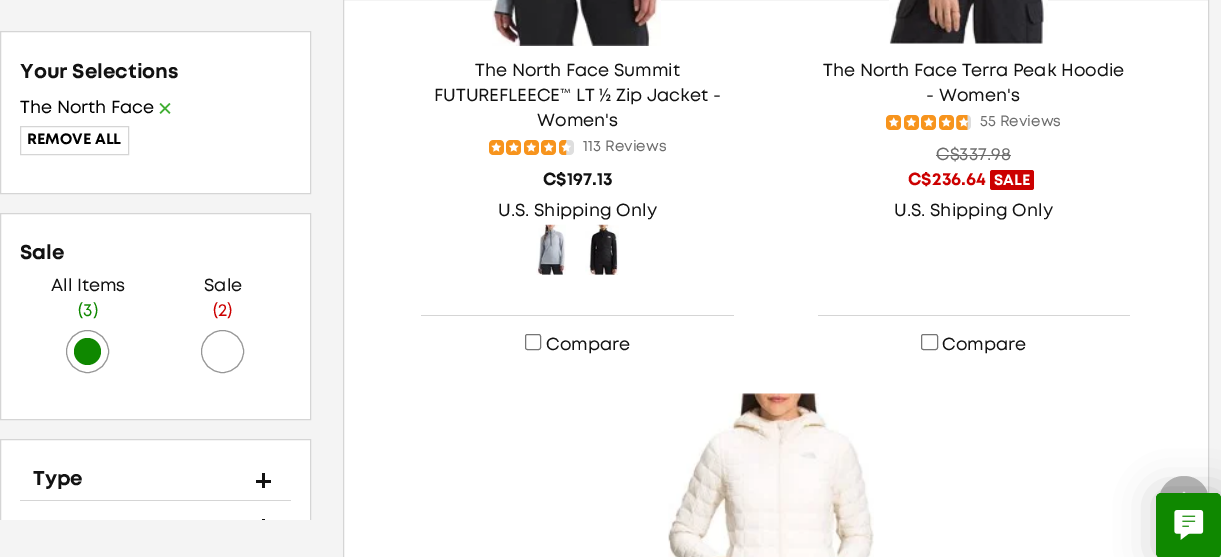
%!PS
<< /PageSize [1221 557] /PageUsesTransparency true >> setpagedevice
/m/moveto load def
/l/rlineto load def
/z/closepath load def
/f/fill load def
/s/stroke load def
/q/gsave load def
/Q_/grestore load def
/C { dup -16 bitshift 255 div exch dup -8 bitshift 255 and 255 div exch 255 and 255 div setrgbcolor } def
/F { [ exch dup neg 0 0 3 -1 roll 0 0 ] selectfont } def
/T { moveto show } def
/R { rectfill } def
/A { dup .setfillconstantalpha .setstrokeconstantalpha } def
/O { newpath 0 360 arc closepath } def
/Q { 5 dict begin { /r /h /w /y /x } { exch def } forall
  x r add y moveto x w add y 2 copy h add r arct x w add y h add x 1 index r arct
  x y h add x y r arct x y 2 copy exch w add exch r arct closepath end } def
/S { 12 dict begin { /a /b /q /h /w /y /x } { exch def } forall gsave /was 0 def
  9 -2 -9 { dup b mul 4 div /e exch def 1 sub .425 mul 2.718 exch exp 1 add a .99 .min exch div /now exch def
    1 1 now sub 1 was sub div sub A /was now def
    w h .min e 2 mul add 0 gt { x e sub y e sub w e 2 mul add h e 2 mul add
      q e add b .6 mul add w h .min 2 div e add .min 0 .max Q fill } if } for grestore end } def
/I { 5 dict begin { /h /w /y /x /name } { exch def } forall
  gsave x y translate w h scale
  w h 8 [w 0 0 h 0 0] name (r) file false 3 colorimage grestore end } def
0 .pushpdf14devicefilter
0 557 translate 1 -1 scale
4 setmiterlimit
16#F4F4F4 C
0 0 1221 557 R
16#FFFFFF C
.5 31.5 m 310 0 l 0 162 l -310 0 l z q f Q_
16#D5D5D5 C
s
/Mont-ExtraBold 20 F
16#121212 C
(Your Selections) 20 78 T
/Mont-SemiBold 17.5 F
16#000000 C
(The North Face) 20 113 T
(1.rgb) 159 103 12 11 I
16#D5D5D5 C
20.5 126.5 108 28 rectstroke
/Mont-ExtraBold 15 F
16#000000 C
(REMOVE ALL) 27 144 T
16#FFFFFF C
.5 213.5 m 310 0 l 0 206 l -310 0 l z q f Q_
16#D5D5D5 C
s
/Mont-ExtraBold 20 F
16#121212 C
(Sale) 20 259 T
/Mont-SemiBold 17.5 F
(All Items) 51 291 T
16#0F8800 C
(\(3\)) 78 316 T
16#969696 C
87.5 351.5 21 O s
16#0F8800 C
87.5 351.5 13.5 O f
16#121212 C
(Sale) 204 291 T
16#CC0000 C
(\(2\)) 213 316 T
16#969696 C
222.5 351.5 21 O s
16#FFFFFF C
1 440 309 80 R
q
0 13 343 507 rectclip
16#D5D5D5 C
.5 439.5 310 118 rectstroke
Q_
16#D5D5D5 C
20 500 271 1 R
/Mont-ExtraBold 20 F
16#121212 C
(Type) 33 485 T
256 480 15 3 R
262 473 3 15 R
262 519 3 1 R
16#FFFFFF C
343.5 -.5 m 865 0 l 0 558 l -865 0 l z q f Q_
16#D5D5D5 C
s
(2.rgb) 492 0 169 46 I
/Mont-SemiBold 17.5 F
16#121212 C
(The North Face Summit) 475 76 T
(FUTUREFLEECE™ LT ½ Zip Jacket -) 434 101 T
(Women's) 537 126 T
(3.rgb) 489 140 15 15 I
(4.rgb) 506 140 15 15 I
(3.rgb) 524 140 15 15 I
(4.rgb) 541 140 15 15 I
(5.rgb) 559 140 15 15 I
/Mont-SemiBold 15 F
16#6C6C6C C
(113 Reviews) 583 151 T
/Mont-ExtraBold 17.5 F
16#121212 C
(C$197.13) 543 185 T
/Mont-SemiBold 17.5 F
(U.S. Shipping Only) 498 216 T
(6.rgb) 536 224 30 51 I
(7.rgb) 585 224 34 51 I
16#D5D5D5 C
421 315 313 1 R
16#767676 C
525.5 334.5 15 15 2 Q s
16#121212 C
(Compare) 546 350 T
(8.rgb) 889 0 159 44 I
(The North Face Terra Peak Hoodie) 823 76 T
(- Women's) 926 101 T
(4.rgb) 886 115 15 15 I
(3.rgb) 904 115 15 15 I
(4.rgb) 921 115 15 15 I
(3.rgb) 939 115 15 15 I
(9.rgb) 956 115 15 15 I
/Mont-SemiBold 15 F
16#6C6C6C C
(55 Reviews) 980 126 T
/Mont-SemiBold 17.5 F
(C$337.98) 936 160 T
936 155 75 1 R
/Mont-ExtraBold 17.5 F
16#CC0000 C
(C$236.64) 908 185 T
990 170 44 20 2.5 Q f
/Mont-ExtraBold 15 F
16#FFFFFF C
(SALE) 994 185 T
/Mont-SemiBold 17.5 F
16#121212 C
(U.S. Shipping Only) 894 216 T
16#D5D5D5 C
818 315 312 1 R
16#767676 C
921.5 334.5 16 15 2 Q s
16#121212 C
(Compare) 942 350 T
(10.rgb) 668 393 206 164 I
0.65 A
16#969696 C
1184 501 25 O f
1 A
16#FFFFFF C
1198 505.5 m -1.5 1 l -12.5 -12 l -12.5 12 l -1.5 -1 l 14 -14 l z f
16#000000 C
1155 491 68 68 6 19 .2 S
16#0F8800 C
1156.5 493.5 64 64 4.5 Q q f Q_
s
(11.rgb) 1174 510 30 30 I
.poppdf14devicefilter showpage
